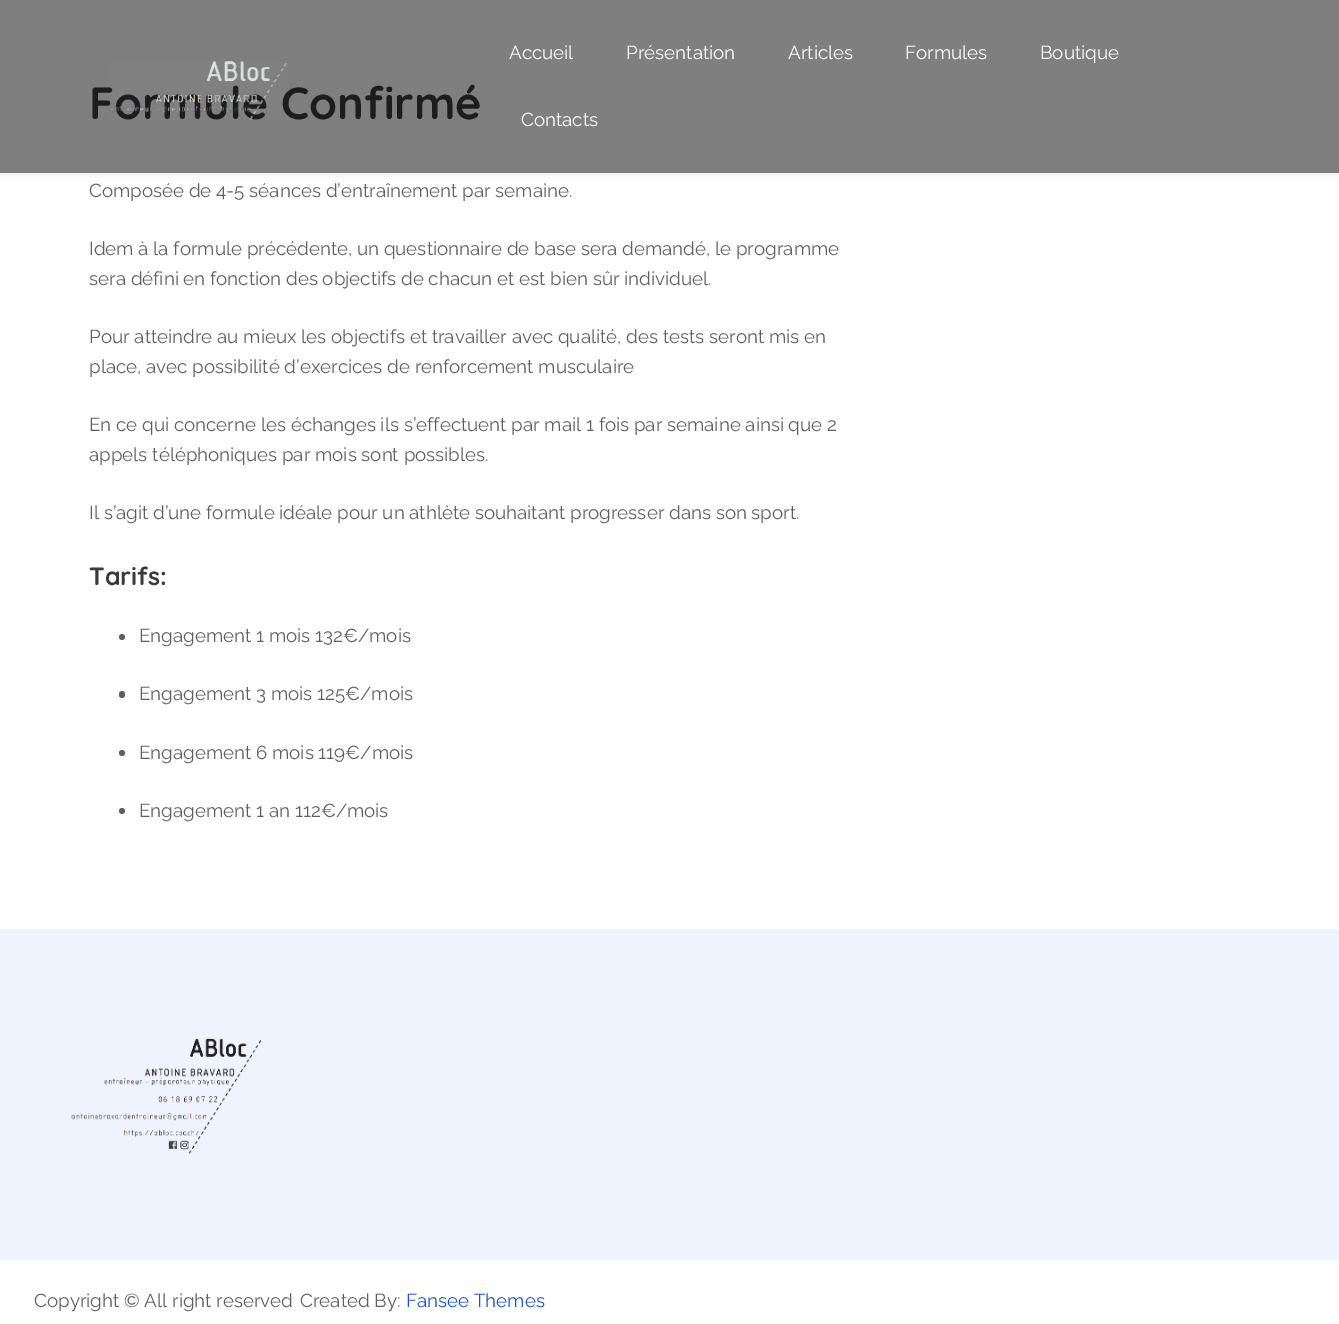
%!PS
<< /PageSize [1339 1324] /PageUsesTransparency true >> setpagedevice
/m/moveto load def
/l/rlineto load def
/z/closepath load def
/f/fill load def
/q/gsave load def
/Q_/grestore load def
/C { dup -16 bitshift 255 div exch dup -8 bitshift 255 and 255 div exch 255 and 255 div setrgbcolor } def
/F { [ exch dup neg 0 0 3 -1 roll 0 0 ] selectfont } def
/T { moveto show } def
/R { rectfill } def
/A { dup .setfillconstantalpha .setstrokeconstantalpha } def
/O { newpath 0 360 arc closepath } def
/Q { 5 dict begin { /r /h /w /y /x } { exch def } forall
  x r add y moveto x w add y 2 copy h add r arct x w add y h add x 1 index r arct
  x y h add x y r arct x y 2 copy exch w add exch r arct closepath end } def
/S { 12 dict begin { /a /b /q /h /w /y /x } { exch def } forall gsave /was 0 def
  9 -2 -9 { dup b mul 4 div /e exch def 1 sub .425 mul 2.718 exch exp 1 add a .99 .min exch div /now exch def
    1 1 now sub 1 was sub div sub A /was now def
    w h .min e 2 mul add 0 gt { x e sub y e sub w e 2 mul add h e 2 mul add
      q e add b .6 mul add w h .min 2 div e add .min 0 .max Q fill } if } for grestore end } def
/I { 5 dict begin { /h /w /y /x /name } { exch def } forall
  gsave x y translate w h scale
  w h 8 [w 0 0 h 0 0] name (r) file false 3 colorimage grestore end } def
0 .pushpdf14devicefilter
0 1324 translate 1 -1 scale
4 setmiterlimit
16#FFFFFF C
0 0 1339 1324 R
q
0 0 m 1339 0 l 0 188 l -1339 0 l z 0 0 m 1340 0 l 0 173 l -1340 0 l z eoclip newpath
16#000000 C
0 0 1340 173 0 4.5 .1 S
Q_
/Quicksand-Bold 45 F
16#3A3A3A C
(Formule Confirmé) 89 119 T
0.5 A
16#000000 C
0 0 1339 173 R
1 A
(1.rgb) 110 61 178 59 I
/Raleway-Thin 18.75 F
16#FFFFFF C
(Accueil) 509 59 T
(Présentation) 626 59 T
(Articles) 788 59 T
(Formules) 905 59 T
(Boutique) 1040 59 T
(Contacts) 521 126 T
16#5F5F5F C
(Composée de 4-5 séances d’entraînement par semaine.) 89 197 T
(Idem à la formule précédente, un questionnaire de base sera demandé, le programme) 89 255 T
(sera défini en fonction des objectifs de chacun et est bien sûr individuel.) 89 285 T
(Pour atteindre au mieux les objectifs et travailler avec qualité, des tests seront mis en) 89 343 T
(place, avec possibilité d’exercices de renforcement musculaire) 89 373 T
(En ce qui concerne les échanges ils s’effectuent par mail 1 fois par semaine ainsi que 2) 89 431 T
(appels téléphoniques par mois sont possibles.) 89 461 T
(Il s’agit d’une formule idéale pour un athlète souhaitant progresser dans son sport.) 89 519 T
/Quicksand-Bold 25 F
16#3A3A3A C
(Tarifs:) 89 585 T
16#5F5F5F C
122 637 3 O f
/Raleway-Thin 18.75 F
(Engagement 1 mois 132€/mois) 139 642 T
119 691 6 7 3 Q f
(Engagement 3 mois 125€/mois) 139 700 T
122 753 3 O f
(Engagement 6 mois 119€/mois) 139 759 T
122 811 3 O f
(Engagement 1 an 112€/mois) 139 817 T
16#EFF3FE C
0 929 1339 332 R
(2.rgb) 71 1038 191 117 I
16#5F5F5F C
(Copyright © All right reserved) 34 1307 T
(Created By:) 300 1307 T
16#1A55CB C
(Fansee Themes) 406 1307 T
.poppdf14devicefilter showpage
